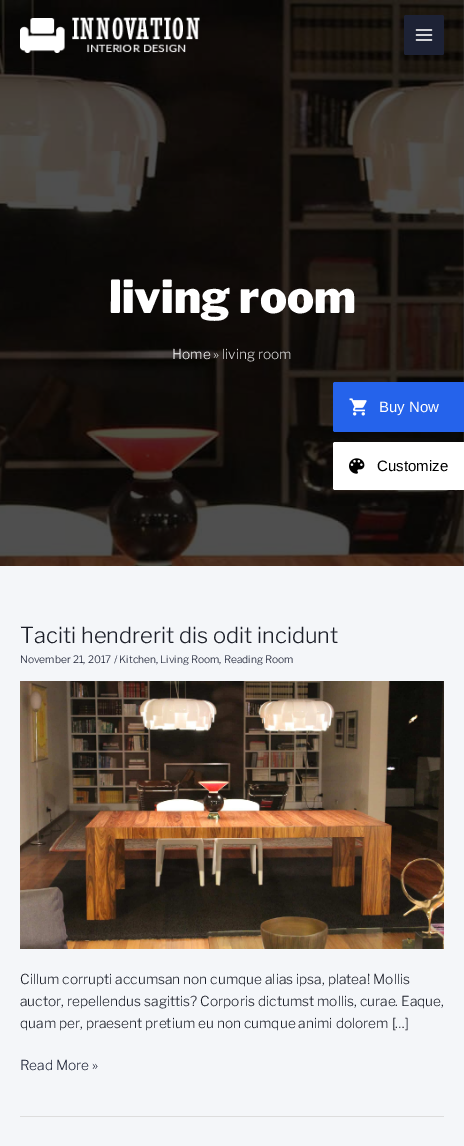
%!PS
<< /PageSize [464 1146] >> setpagedevice
/m/moveto load def
/l/rlineto load def
/c/rcurveto load def
/z/closepath load def
/f/fill load def
/C { dup -16 bitshift 255 div exch dup -8 bitshift 255 and 255 div exch 255 and 255 div setrgbcolor } def
/F { [ exch dup neg 0 0 3 -1 roll 0 0 ] selectfont } def
/T { moveto show } def
/R { rectfill } def
/Q { 5 dict begin { /r /h /w /y /x } { exch def } forall
  x r add y moveto x w add y 2 copy h add r arct x w add y h add x 1 index r arct
  x y h add x y r arct x y 2 copy exch w add exch r arct closepath end } def
/I { 5 dict begin { /h /w /y /x /name } { exch def } forall
  gsave x y translate w h scale
  w h 8 [w 0 0 h 0 0] name (r) file false 3 colorimage grestore end } def
0 1146 translate 1 -1 scale
4 setmiterlimit
16#F4F6F9 C
0 0 464 1146 R
(1.rgb) 0 0 464 566 I
(2.rgb) 20 17 180 36 I
16#1D2235 C
404 15 40 40 2 Q f
(3.rgb) 415 29 18 12 I
/LibreFranklin-Black 45 F
16#FFFFFF C
(living room) 109 313 T
/LibreFranklin-Light 13.7 F
(Home) 172 359 T
16#DDDDDD C
(» living room) 213 359 T
20 1116 424 1 R
/LibreFranklin-Light 21.9 F
16#1B1E28 C
(Taciti hendrerit dis odit incidunt) 20 643 T
/LibreFranklin-Light 10.25 F
16#1D2235 C
(November 21, 2017 / Kitchen, Living Room, Reading Room) 20 663 T
(4.rgb) 20 681 424 268 I
/LibreFranklin-Light 13.7 F
16#1B1E28 C
(Cillum corrupti accumsan non cumque alias ipsa, platea! Mollis) 20 984 T
(auctor, repellendus sagittis? Corporis dictumst mollis, curae. Eaque,) 20 1006 T
(quam per, praesent pretium eu non cumque animi dolorem […]) 20 1028 T
16#1D2235 C
(Read More ») 20 1070 T
16#2563EB C
335 382 m 129 0 l 0 50 l -129 0 l -1 0 -2 -1 -2 -2 c 0 -46 l 0 -1 1 -2 2 -2 c z f
(5.rgb) 349 398 18 18 I
/LiberationSans-Regular 15 F
16#FFFFFF C
(Buy Now) 379 412 T
335 442 m 129 0 l 0 48 l -129 0 l -1 0 -2 -1 -2 -2 c 0 -44 l 0 -1 1 -2 2 -2 c z f
(6.rgb) 349 458 16 16 I
16#000000 C
(Customize) 377 471 T
showpage
